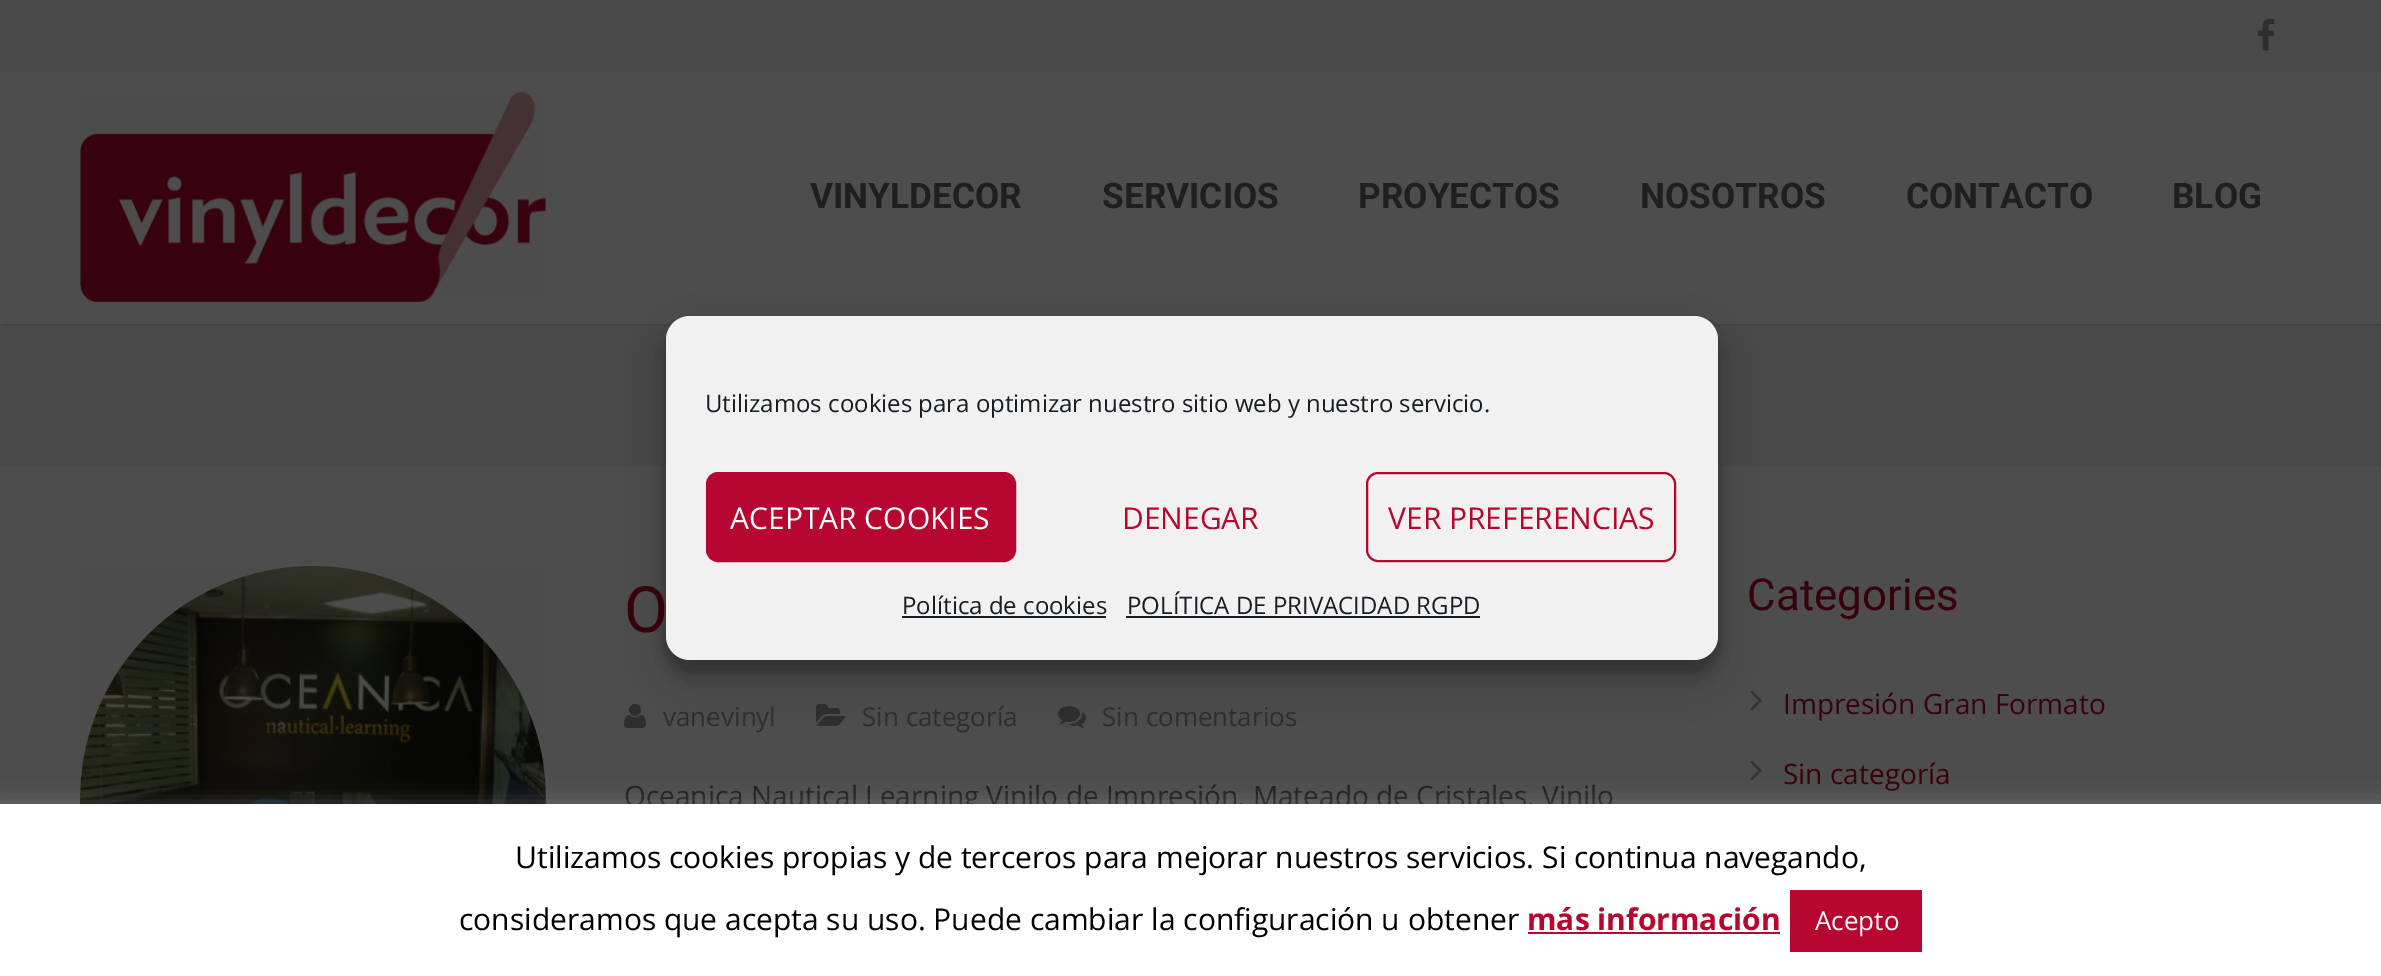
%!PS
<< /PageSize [2381 976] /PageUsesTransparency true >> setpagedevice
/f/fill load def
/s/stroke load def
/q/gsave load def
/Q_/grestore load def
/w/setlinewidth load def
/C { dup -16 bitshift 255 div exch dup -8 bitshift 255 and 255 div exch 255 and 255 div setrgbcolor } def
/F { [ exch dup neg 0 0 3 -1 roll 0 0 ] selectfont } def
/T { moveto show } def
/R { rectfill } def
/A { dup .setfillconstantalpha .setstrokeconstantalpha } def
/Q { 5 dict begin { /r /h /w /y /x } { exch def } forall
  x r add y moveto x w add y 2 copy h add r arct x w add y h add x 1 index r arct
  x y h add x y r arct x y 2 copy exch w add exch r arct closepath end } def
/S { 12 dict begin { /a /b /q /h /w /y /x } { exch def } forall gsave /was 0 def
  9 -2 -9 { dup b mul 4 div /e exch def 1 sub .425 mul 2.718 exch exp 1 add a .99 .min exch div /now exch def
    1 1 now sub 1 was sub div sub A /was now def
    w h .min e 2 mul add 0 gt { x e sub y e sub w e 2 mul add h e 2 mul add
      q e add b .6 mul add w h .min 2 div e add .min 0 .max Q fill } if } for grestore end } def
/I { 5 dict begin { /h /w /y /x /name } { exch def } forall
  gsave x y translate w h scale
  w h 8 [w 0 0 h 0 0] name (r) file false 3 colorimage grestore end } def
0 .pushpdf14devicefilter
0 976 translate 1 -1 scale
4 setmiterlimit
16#4D4D4D C
0 0 2381 976 R
16#4A4A4A C
0 0 2381 72 R
(1.rgb) 2257 18 18 33 I
16#494949 C
0 324 2381 142 R
16#434343 C
2 324 2378 2 R
(2.rgb) 80 91 466 211 I
/Roboto-Bold 35.25 F
16#1F1F1F C
(VINYLDECOR) 810 208 T
(SERVICIOS) 1102 208 T
(PROYECTOS) 1358 208 T
(NOSOTROS) 1640 208 T
(CONTACTO) 1906 208 T
(BLOG) 2172 208 T
(3.rgb) 80 566 466 238 I
/Roboto-Regular 64 F
16#37020E C
(O) 624 632 T
(4.rgb) 624 704 22 24 I
/OpenSans-Regular 26 F
16#2E2E2E C
(vanevinyl) 663 726 T
(5.rgb) 816 704 30 22 I
(Sin categoría) 862 726 T
(6.rgb) 1058 706 28 22 I
(Sin comentarios) 1102 726 T
/OpenSans-Regular 28 F
16#1F1F1F C
(Oceanica Nautical Learning Vinilo de Impresión. Mateado de Cristales. Vinilo) 624 806 T
/Roboto-Regular 44 F
16#37020E C
(Categories) 1747 610 T
(7.rgb) 1750 690 12 21 I
/OpenSans-Regular 28 F
(Impresión Gran Formato) 1783 714 T
(7.rgb) 1750 760 12 21 I
(Sin categoría) 1783 784 T
16#000000 C
666 328 1052 344 24 6 .23 S
666 336 1052 344 24 20 .19 S
16#F1F1F1 C
666 316 1052 344 24 Q f
/OpenSans-Regular 24 F
16#191E23 C
(Utilizamos cookies para optimizar nuestro sitio web y nuestro servicio.) 705 412 T
16#B7062F C
707 473 308 88 11 Q q f Q_
2 w
s
/OpenSans-Regular 30 F
16#FFFFFF C
(ACEPTAR COOKIES) 730 529 T
16#B7062F C
(DENEGAR) 1122 529 T
1367 473 308 88 11 Q s
(VER PREFERENCIAS) 1388 529 T
/OpenSans-Regular 24 F
16#191E23 C
(Política de cookies) 902 614 T
902 616 204 2 R
(POLÍTICA DE PRIVACIDAD RGPD) 1127 614 T
1126 616 354 2 R
16#ACABAB C
0 802 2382 172 0 10 .3 S
16#FFFFFF C
0 804 2381 172 R
/OpenSans-Regular 30 F
16#000000 C
(Utilizamos cookies propias y de terceros para mejorar nuestros servicios. Si continua navegando,) 515 868 T
(consideramos que acepta su uso. Puede cambiar la configuración u obtener) 459 930 T
/OpenSans-Bold 30 F
16#B7062F C
(más información) 1527 930 T
1528 932 252 2 R
1790 890 132 62 R
/OpenSans-Regular 26 F
16#FFFFFF C
(Acepto) 1815 930 T
.poppdf14devicefilter showpage
